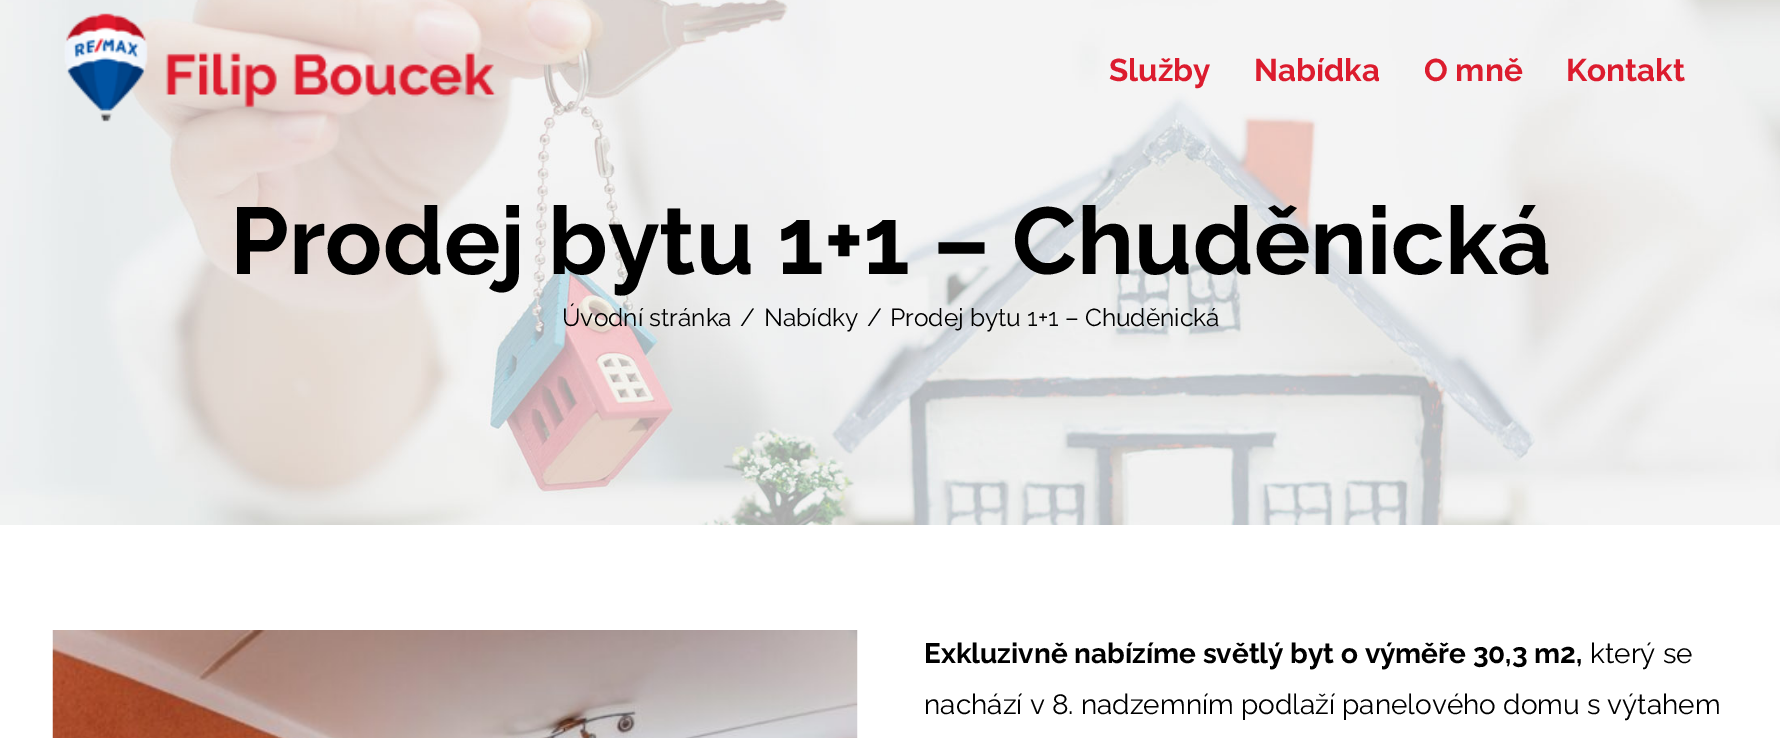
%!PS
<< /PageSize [1780 738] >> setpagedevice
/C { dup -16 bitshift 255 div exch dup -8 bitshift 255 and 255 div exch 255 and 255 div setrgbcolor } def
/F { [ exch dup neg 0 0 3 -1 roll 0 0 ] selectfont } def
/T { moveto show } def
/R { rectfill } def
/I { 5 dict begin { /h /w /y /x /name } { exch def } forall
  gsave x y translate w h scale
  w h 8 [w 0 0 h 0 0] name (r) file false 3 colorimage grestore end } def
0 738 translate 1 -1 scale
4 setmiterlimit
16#FFFFFF C
0 0 1780 738 R
(2.rgb) 0 0 1780 525 I
(1.rgb) 64 13 432 109 I
/Raleway-Bold 31.5 F
16#DC1C2E C
(Služby) 1109 81 T
(Nabídka) 1254 81 T
(O mně) 1424 81 T
(Kontakt) 1566 81 T
/Raleway-Bold 94.5 F
16#000000 C
(Prodej bytu 1+1 – Chuděnická) 230 274 T
/Raleway-Regular 24.5 F
(Úvodní stránka) 562 326 T
(/) 740 326 T
(Nabídky) 764 326 T
(/) 867 326 T
(Prodej bytu 1+1 – Chuděnická) 890 326 T
(3.rgb) 52 630 806 108 I
/Raleway-Bold 28 F
(Exkluzivně nabízíme světlý byt o výměře 30,3 m2,) 924 663 T
/Raleway-Regular 28 F
(který se) 1590 663 T
(nachází v 8. nadzemním podlaží panelového domu s výtahem) 924 714 T
showpage
